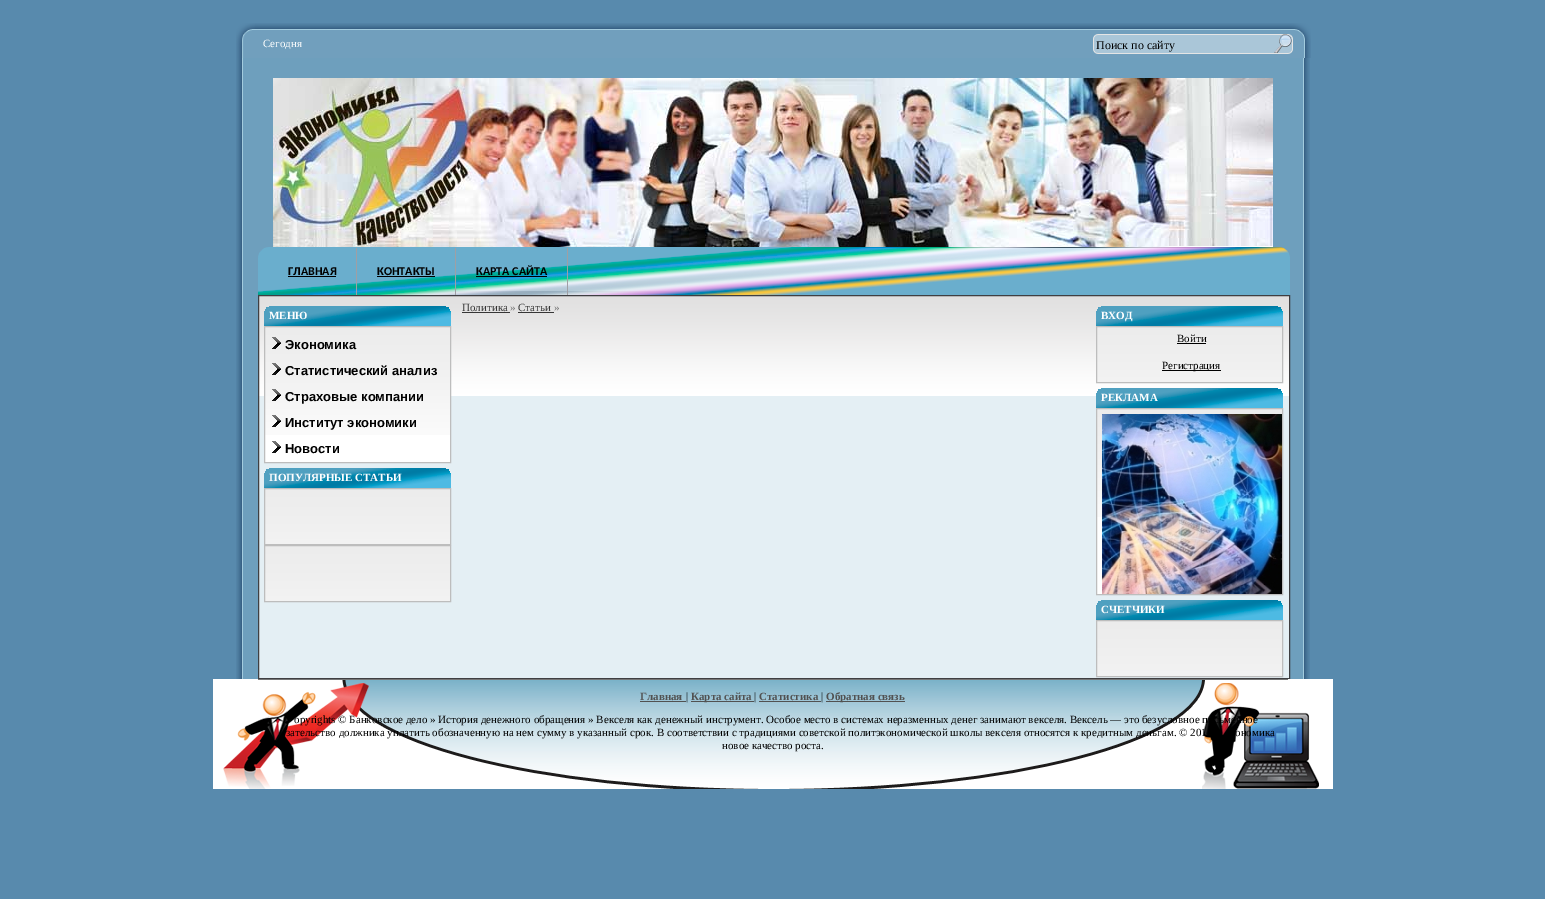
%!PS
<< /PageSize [1545 899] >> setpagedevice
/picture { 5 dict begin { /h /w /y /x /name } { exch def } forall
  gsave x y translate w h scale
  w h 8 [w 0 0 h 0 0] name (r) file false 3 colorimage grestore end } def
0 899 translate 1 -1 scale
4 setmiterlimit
0.345 0.541 0.678 setrgbcolor
0 0 1545 899 rectfill
(img1.rgb) 236 23 1075 35 picture
/LiberationSerif-Regular [11 0 0 -11 0 0] selectfont
1 setgray
263 47 moveto (Сегодня) show
(img2.rgb) 1093 34 200 20 picture
/LiberationSerif-Regular [12 0 0 -12 0 0] selectfont
0 setgray
1096 49 moveto (Поиск по сайту) show
(img3.rgb) 1274 34 18 19 picture
(img4.rgb) 236 58 1074 621 picture
(img5.rgb) 273 78 1000 169 picture
(img6.rgb) 258 247 1032 48 picture
0.624 0.624 0.643 setrgbcolor
356 248 1 47 rectfill
/Carlito-Bold [12 0 0 -12 0 0] selectfont
0 setgray
288 275 moveto (ГЛАВНАЯ) show
288 276 48 1 rectfill
0.624 0.624 0.643 setrgbcolor
455 248 1 47 rectfill
0 setgray
377 275 moveto (КОНТАКТЫ) show
377 276 58 1 rectfill
0.624 0.624 0.643 setrgbcolor
567 248 1 47 rectfill
0 setgray
476 275 moveto (КАРТА САЙТА) show
476 276 71 1 rectfill
0.894 0.937 0.957 setrgbcolor
259 396 1030 282 rectfill
(img7.rgb) 259 296 1030 100 picture
0.247 0.247 0.259 setrgbcolor
258.5 295.5 1031 383 rectstroke
/LiberationSerif-Regular [11 0 0 -11 0 0] selectfont
0.212 setgray
462 311 moveto (Политика) show
0.447 setgray
510 311 moveto (») show
0.212 setgray
462 312 48 1 rectfill
518 311 moveto (Статьи) show
0.447 setgray
554 311 moveto (») show
0.212 setgray
518 312 36 1 rectfill
(img8.rgb) 264 306 187 20 picture
/LiberationSerif-Bold [11 0 0 -11 0 0] selectfont
1 setgray
269 319 moveto (МЕНЮ) show
265 435 185 27 rectfill
(img9.rgb) 265 327 185 108 picture
0.741 setgray
264.5 326.5 186 136 rectstroke
(img10.rgb) 272 337 9 12 picture
/LiberationSans-Bold [13 0 0 -13 0 0] selectfont
0 setgray
285 349 moveto (Экономика) show
(img11.rgb) 272 363 9 12 picture
285 375 moveto (Статистический анализ) show
(img12.rgb) 272 389 9 12 picture
285 401 moveto (Страховые компании) show
(img13.rgb) 272 415 9 12 picture
285 427 moveto (Институт экономики) show
(img14.rgb) 272 441 9 12 picture
285 453 moveto (Новости) show
(img15.rgb) 264 468 187 20 picture
/LiberationSerif-Bold [11 0 0 -11 0 0] selectfont
1 setgray
269 481 moveto (ПОПУЛЯРНЫЕ СТАТЬИ) show
(img16.rgb) 265 489 185 55 picture
0.741 setgray
264.5 488.5 186 56 rectstroke
(img16.rgb) 265 546 185 55 picture
264.5 545.5 186 56 rectstroke
(img8.rgb) 1096 306 187 20 picture
1 setgray
1101 319 moveto (ВХОД) show
(img16.rgb) 1097 327 185 55 picture
0.741 setgray
1096.5 326.5 186 56 rectstroke
/LiberationSerif-Regular [11 0 0 -11 0 0] selectfont
0 setgray
1177 342 moveto (Войти) show
1177 343 29 1 rectfill
1162 370 59 1 rectfill
1162 369 moveto (Регистрация) show
(img17.rgb) 1096 388 187 20 picture
/LiberationSerif-Bold [11 0 0 -11 0 0] selectfont
1 setgray
1101 401 moveto (РЕКЛАМА) show
1097 517 5 77 rectfill
(img9.rgb) 1097 409 185 108 picture
0.741 setgray
1096.5 408.5 186 186 rectstroke
(img18.rgb) 1102 414 180 180 picture
(img15.rgb) 1096 600 187 20 picture
1 setgray
1101 613 moveto (СЧЕТЧИКИ) show
(img16.rgb) 1097 621 185 55 picture
0.741 setgray
1096.5 620.5 186 56 rectstroke
(img19.rgb) 213 679 1120 110 picture
0.463 setgray
258 679 1030 1 rectfill
0.318 setgray
640 700 moveto (Главная) show
640 701 46 1 rectfill
/LiberationSerif-Regular [11 0 0 -11 0 0] selectfont
0 setgray
686 700 moveto (|) show
0.318 setgray
691 701 63 1 rectfill
/LiberationSerif-Bold [11 0 0 -11 0 0] selectfont
691 700 moveto (Карта сайта) show
/LiberationSerif-Regular [11 0 0 -11 0 0] selectfont
0 setgray
754 700 moveto (|) show
/LiberationSerif-Bold [11 0 0 -11 0 0] selectfont
0.318 setgray
759 700 moveto (Статистика) show
759 701 62 1 rectfill
/LiberationSerif-Regular [11 0 0 -11 0 0] selectfont
0 setgray
821 700 moveto (|) show
0.318 setgray
826 701 79 1 rectfill
/LiberationSerif-Bold [11 0 0 -11 0 0] selectfont
826 700 moveto (Обратная связь) show
/LiberationSerif-Regular [11 0 0 -11 0 0] selectfont
0 setgray
294 723 moveto (opyrights © Банковское дело » История денежного обращения » Векселя как денежный инструмент. Особое место в системах неразменных денег занимают векселя. Вексель — это безусловное письменное) show
286 736 moveto (зательство должника уплатить обозначенную на нем сумму в указанный срок. В соответствии с традициями советской политэкономической школы векселя относятся к кредитным деньгам. © 201) show
1235 736 moveto (ономика) show
722 749 moveto (новое качество роста.) show
showpage
